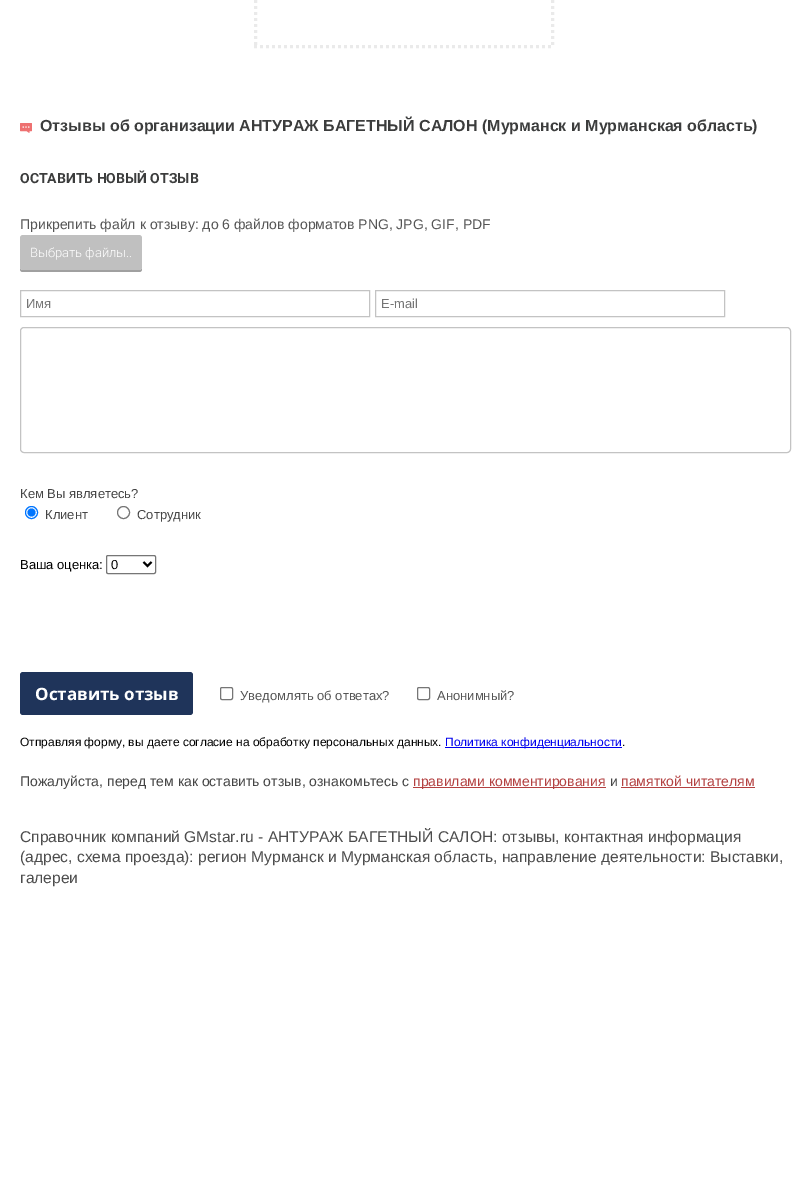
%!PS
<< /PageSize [807 1181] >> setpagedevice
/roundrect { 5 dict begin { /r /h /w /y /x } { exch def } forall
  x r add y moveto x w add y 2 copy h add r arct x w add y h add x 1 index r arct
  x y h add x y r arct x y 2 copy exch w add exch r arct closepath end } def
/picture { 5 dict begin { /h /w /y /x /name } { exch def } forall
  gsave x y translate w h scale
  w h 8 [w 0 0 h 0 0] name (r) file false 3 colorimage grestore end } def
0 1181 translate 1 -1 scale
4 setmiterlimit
1 setgray
0 0 807 1181 rectfill
0.918 setgray
3 setlinewidth
[3 3] 0 setdash
newpath 552.5 -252 moveto 552.5 48 lineto stroke
newpath 254 46.5 moveto 554 46.5 lineto stroke
newpath 255.5 -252 moveto 255.5 48 lineto stroke
(img1.rgb) 20 123 12 10 picture
/LiberationSans-Bold [16 0 0 -16 0 0] selectfont
0.235 0.239 0.239 setrgbcolor
40 131 moveto (Отзывы об организации АНТУРАЖ БАГЕТНЫЙ САЛОН \(Мурманск и Мурманская область\)) show
/Roboto-Bold [14 0 0 -14 0 0] selectfont
20 183 moveto (ОСТАВИТЬ НОВЫЙ ОТЗЫВ) show
/LiberationSans-Regular [14 0 0 -14 0 0] selectfont
0.333 setgray
20 229 moveto (Прикрепить файл к отзыву: до 6 файлов форматов PNG, JPG, GIF, PDF) show
0.627 setgray
newpath 20 267 moveto 20 269 lineto 20 271 21 272 23 272 curveto 139 272 lineto 141 272 142 271 142 269 curveto 142 267 lineto 142 269 141 270 139 270 curveto 23 270 lineto 21 270 20 269 20 267 curveto closepath fill
0.753 setgray
20 235 122 35 3 roundrect fill
/Roboto-Light [13 0 0 -13 0 0] selectfont
1 setgray
30 257 moveto (Выбрать файлы..) show
0.765 setgray
1 setlinewidth
[] 0 setdash
20.5 290.5 349 26 rectstroke
/LiberationSans-Regular [13 0 0 -13 0 0] selectfont
0.459 setgray
26 308 moveto (Имя) show
0.765 setgray
375.5 290.5 349 26 rectstroke
0.459 setgray
381 308 moveto (E-mail) show
0.765 setgray
20.5 327.5 770 125 3.5 roundrect stroke
0.271 setgray
20 498 moveto (Кем Вы являетесь?) show
0 0.459 1 setrgbcolor
newpath 31.5 512.5 6 0 360 arc closepath stroke
newpath 31.5 512.5 4 0 360 arc closepath fill
0.271 setgray
45 519 moveto (Клиент) show
0.463 setgray
newpath 123.5 512.5 6 0 360 arc closepath stroke
0.271 setgray
137 519 moveto (Сотрудник) show
0 setgray
20 569 moveto (Ваша оценка:) show
0.463 setgray
106.5 555.5 49 18 1.5 roundrect stroke
0 setgray
2 setlinewidth
newpath 143.5 562 moveto 147.5 566 lineto 151.5 562 lineto stroke
111 569 moveto (0) show
0.122 0.204 0.353 setrgbcolor
20 672 173 43 3 roundrect fill
/OpenSans-Bold [17 0 0 -17 0 0] selectfont
1 setgray
35 700 moveto (Оставить отзыв) show
0.463 setgray
1 setlinewidth
220.5 687.5 12 12 1.5 roundrect stroke
/LiberationSans-Regular [13 0 0 -13 0 0] selectfont
0.333 setgray
240 700 moveto (Уведомлять об ответах?) show
0.463 setgray
417.5 687.5 12 12 1.5 roundrect stroke
0.333 setgray
437 700 moveto (Анонимный?) show
/LiberationSans-Regular [12 0 0 -12 0 0] selectfont
0 setgray
20 746 moveto (Отправляя форму, вы даете согласие на обработку персональных данных.) show
0 0 0.933 setrgbcolor
445 747 177 1 rectfill
445 746 moveto (Политика конфиденциальности) show
0 setgray
622 746 moveto (.) show
/LiberationSans-Regular [14 0 0 -14 0 0] selectfont
0.271 setgray
20 786 moveto (Пожалуйста, перед тем как оставить отзыв, ознакомьтесь с) show
0.706 0.255 0.255 setrgbcolor
413 787 193 1 rectfill
413 786 moveto (правилами комментирования) show
0.271 setgray
610 786 moveto (и) show
0.706 0.255 0.255 setrgbcolor
621 786 moveto (памяткой читателям) show
621 787 134 1 rectfill
/LiberationSans-Regular [15.6 0 0 -15.6 0 0] selectfont
0.302 setgray
20 842 moveto (Справочник компаний GMstar.ru - АНТУРАЖ БАГЕТНЫЙ САЛОН: отзывы, контактная информация) show
20 862 moveto (\(адрес, схема проезда\): регион Мурманск и Мурманская область, направление деятельности: Выставки,) show
20 883 moveto (галереи) show
showpage
